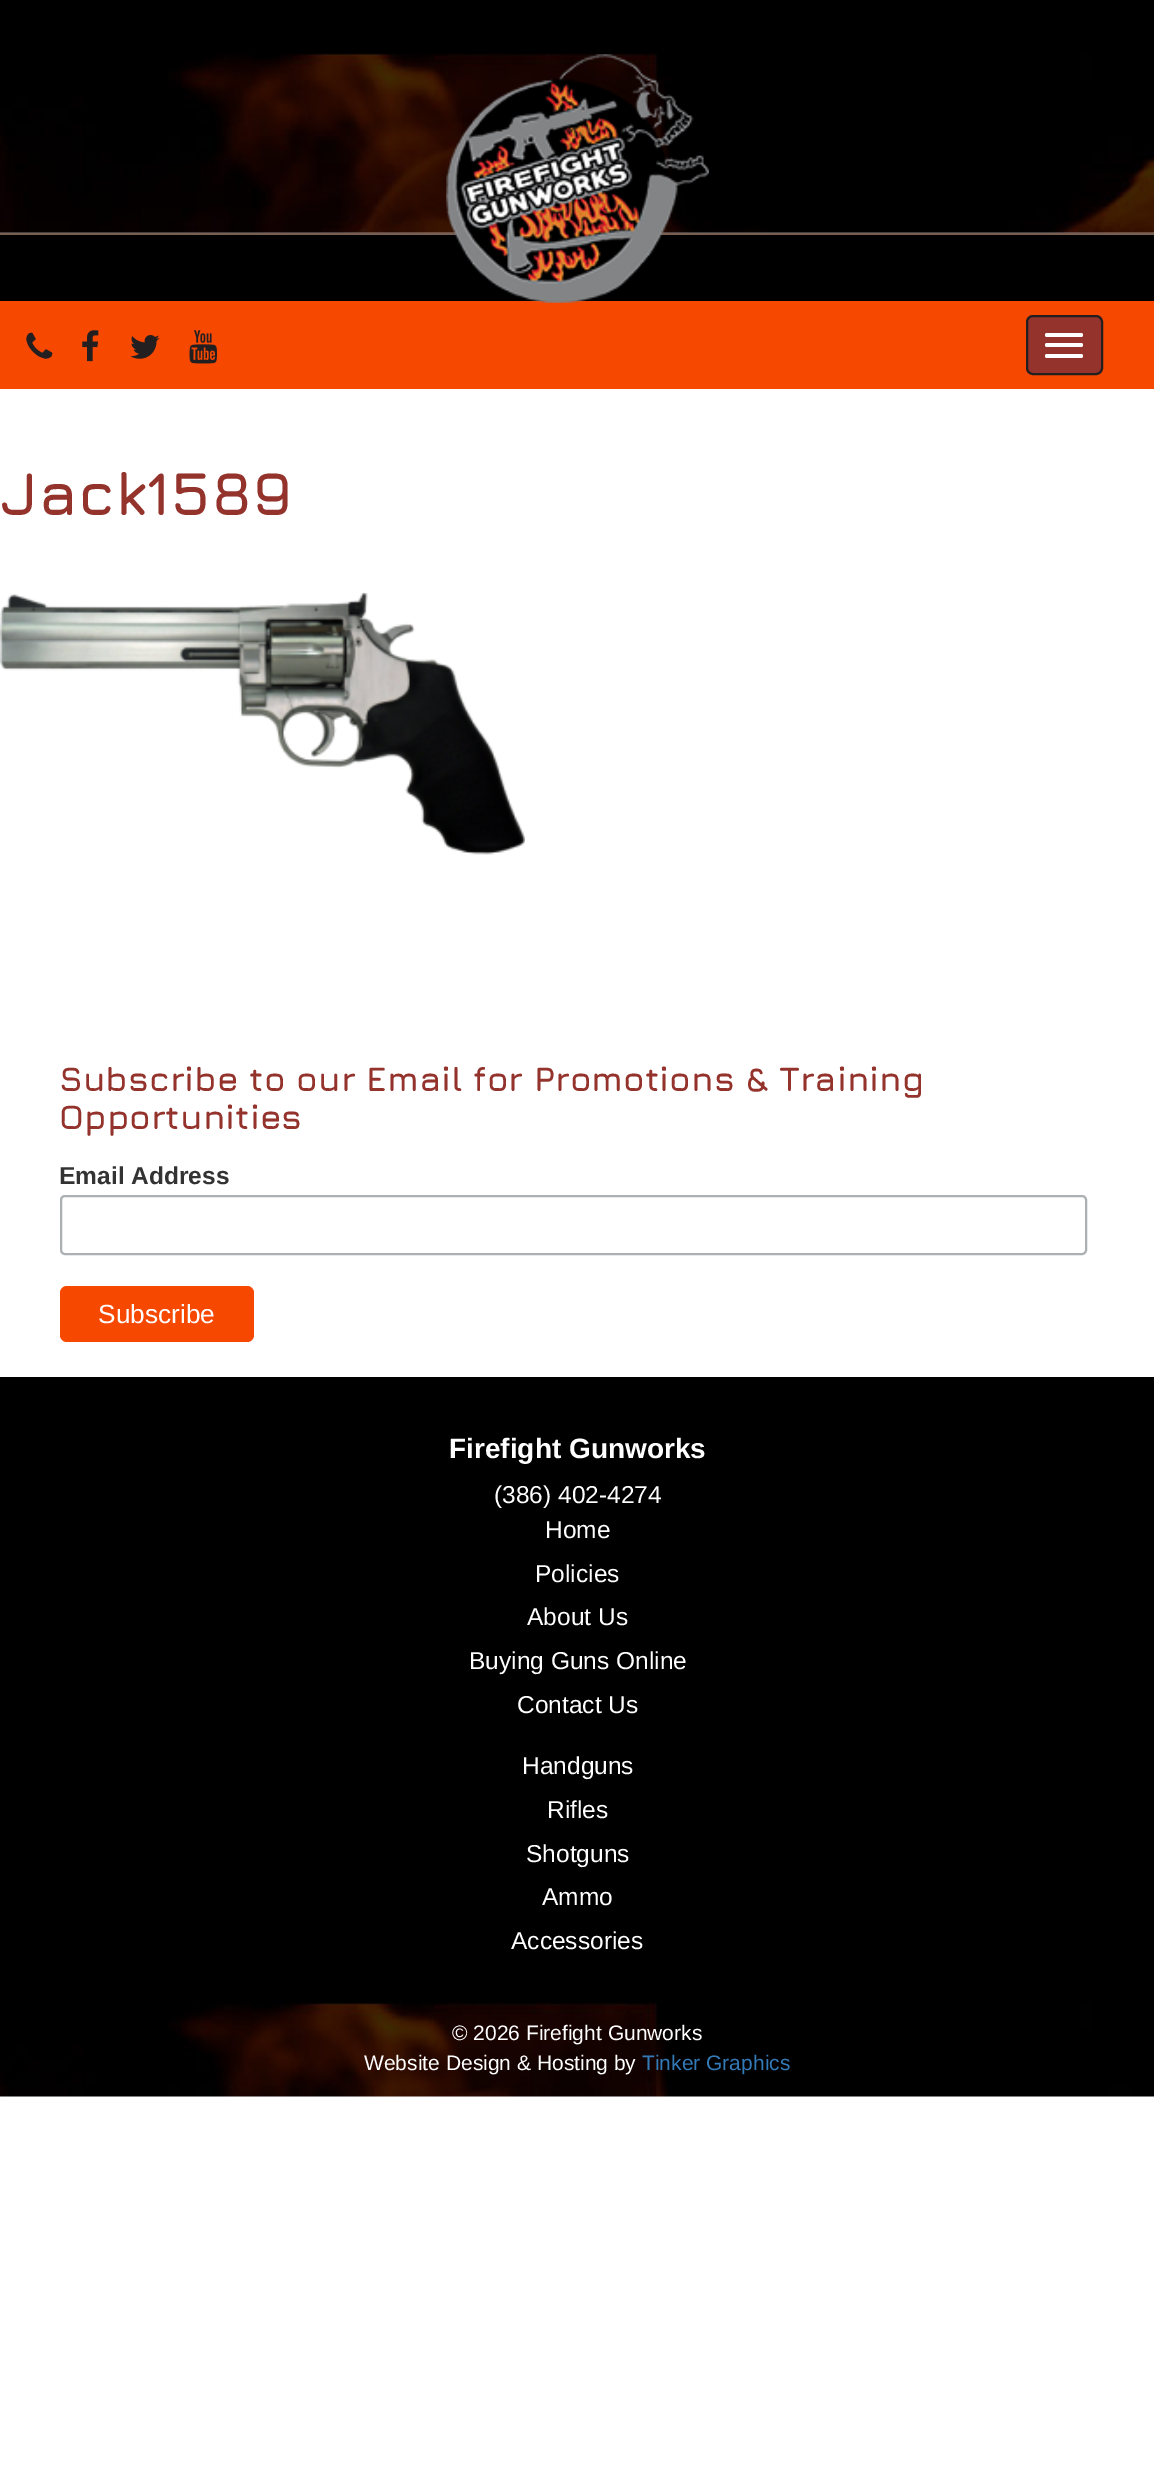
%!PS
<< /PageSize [1154 2482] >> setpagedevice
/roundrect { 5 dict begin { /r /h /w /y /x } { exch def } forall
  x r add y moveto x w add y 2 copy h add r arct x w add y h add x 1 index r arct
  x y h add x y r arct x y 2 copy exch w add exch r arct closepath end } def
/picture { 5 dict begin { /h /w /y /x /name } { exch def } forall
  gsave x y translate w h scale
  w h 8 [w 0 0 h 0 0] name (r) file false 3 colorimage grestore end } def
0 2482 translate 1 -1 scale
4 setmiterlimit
1 setgray
0 0 1154 2482 rectfill
0 setgray
0 0 1154 53 rectfill
(img1.rgb) 0 53 1154 180 picture
0 235 1154 66 rectfill
0.471 0.373 0.322 setrgbcolor
0 233 1154 2 rectfill
0.969 0.282 0 setrgbcolor
0 301 1154 88 rectfill
(img2.rgb) 446 54 263 249 picture
(img3.rgb) 26 332 27 27 picture
(img4.rgb) 82 330 17 32 picture
(img5.rgb) 130 335 30 24 picture
(img6.rgb) 189 330 28 34 picture
0.58 0.196 0.173 setrgbcolor
1027 316 75 58 6 roundrect gsave fill grestore
0.137 0.122 0.125 setrgbcolor
2 setlinewidth
stroke
1 setgray
1045 333 38 4 2 roundrect fill
1045 343 38 4 2 roundrect fill
1045 354 38 4 2 roundrect fill
/Jura-Bold [61.25 0 0 -61.25 0 0] selectfont
0.58 0.196 0.173 setrgbcolor
0 515 moveto (Jack1589) show
(img7.rgb) 0 592 525 263 picture
/Jura-Bold [34.3 0 0 -34.3 0 0] selectfont
59 1091 moveto (Subscribe to our Email for Promotions & Training) show
59 1129 moveto (Opportunities) show
/LiberationSans-Bold [24.5 0 0 -24.5 0 0] selectfont
0.2 setgray
59 1184 moveto (Email Address) show
0.671 0.69 0.698 setrgbcolor
61 1196 1025 58 4 roundrect stroke
0.969 0.282 0 setrgbcolor
60 1286 194 56 7 roundrect fill
/LiberationSans-Regular [26.25 0 0 -26.25 0 0] selectfont
1 setgray
98 1323 moveto (Subscribe) show
0 setgray
0 1377 1154 625 rectfill
/LiberationSans-Bold [28 0 0 -28 0 0] selectfont
1 setgray
449 1458 moveto (Firefight Gunworks) show
/LiberationSans-Regular [24.5 0 0 -24.5 0 0] selectfont
494 1503 moveto (\(386\) 402-4274) show
545 1538 moveto (Home) show
535 1582 moveto (Policies) show
527 1625 moveto (About Us) show
469 1669 moveto (Buying Guns Online) show
517 1713 moveto (Contact Us) show
522 1774 moveto (Handguns) show
547 1818 moveto (Rifles) show
526 1862 moveto (Shotguns) show
542 1905 moveto (Ammo) show
511 1949 moveto (Accessories) show
(img8.rgb) 0 2002 1154 95 picture
/LiberationSans-Regular [21 0 0 -21 0 0] selectfont
452 2040 moveto (© 2026 Firefight Gunworks) show
364 2070 moveto (Website Design & Hosting by) show
0.2 0.478 0.718 setrgbcolor
642 2070 moveto (Tinker Graphics) show
showpage
